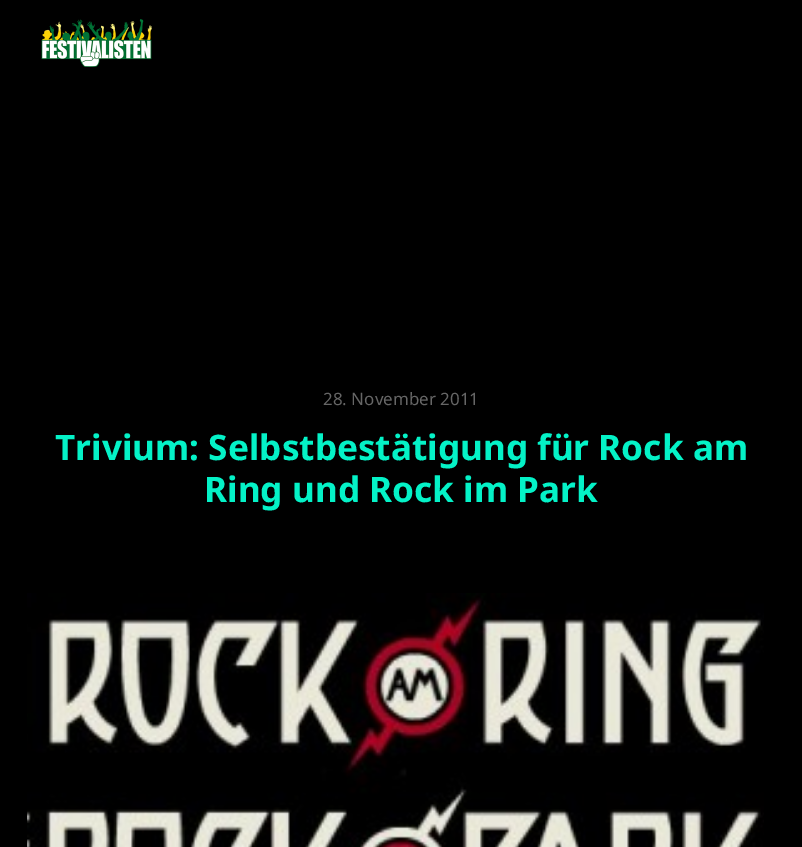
%!PS
<< /PageSize [802 847] >> setpagedevice
/picture { 5 dict begin { /h /w /y /x /name } { exch def } forall
  gsave x y translate w h scale
  w h 8 [w 0 0 h 0 0] name (r) file false 3 colorimage grestore end } def
0 847 translate 1 -1 scale
4 setmiterlimit
0 setgray
0 0 802 847 rectfill
(img1.rgb) 41 19 111 48 picture
/NotoSans-Regular [17 0 0 -17 0 0] selectfont
0.4 setgray
323 405 moveto (28. November 2011) show
/NotoSans-Bold [35.2 0 0 -35.2 0 0] selectfont
0.016 0.949 0.78 setrgbcolor
55 460 moveto (Trivium: Selbstbestätigung für Rock am) show
204 502 moveto (Ring und Rock im Park) show
(img2.rgb) 27 593 737 254 picture
showpage
